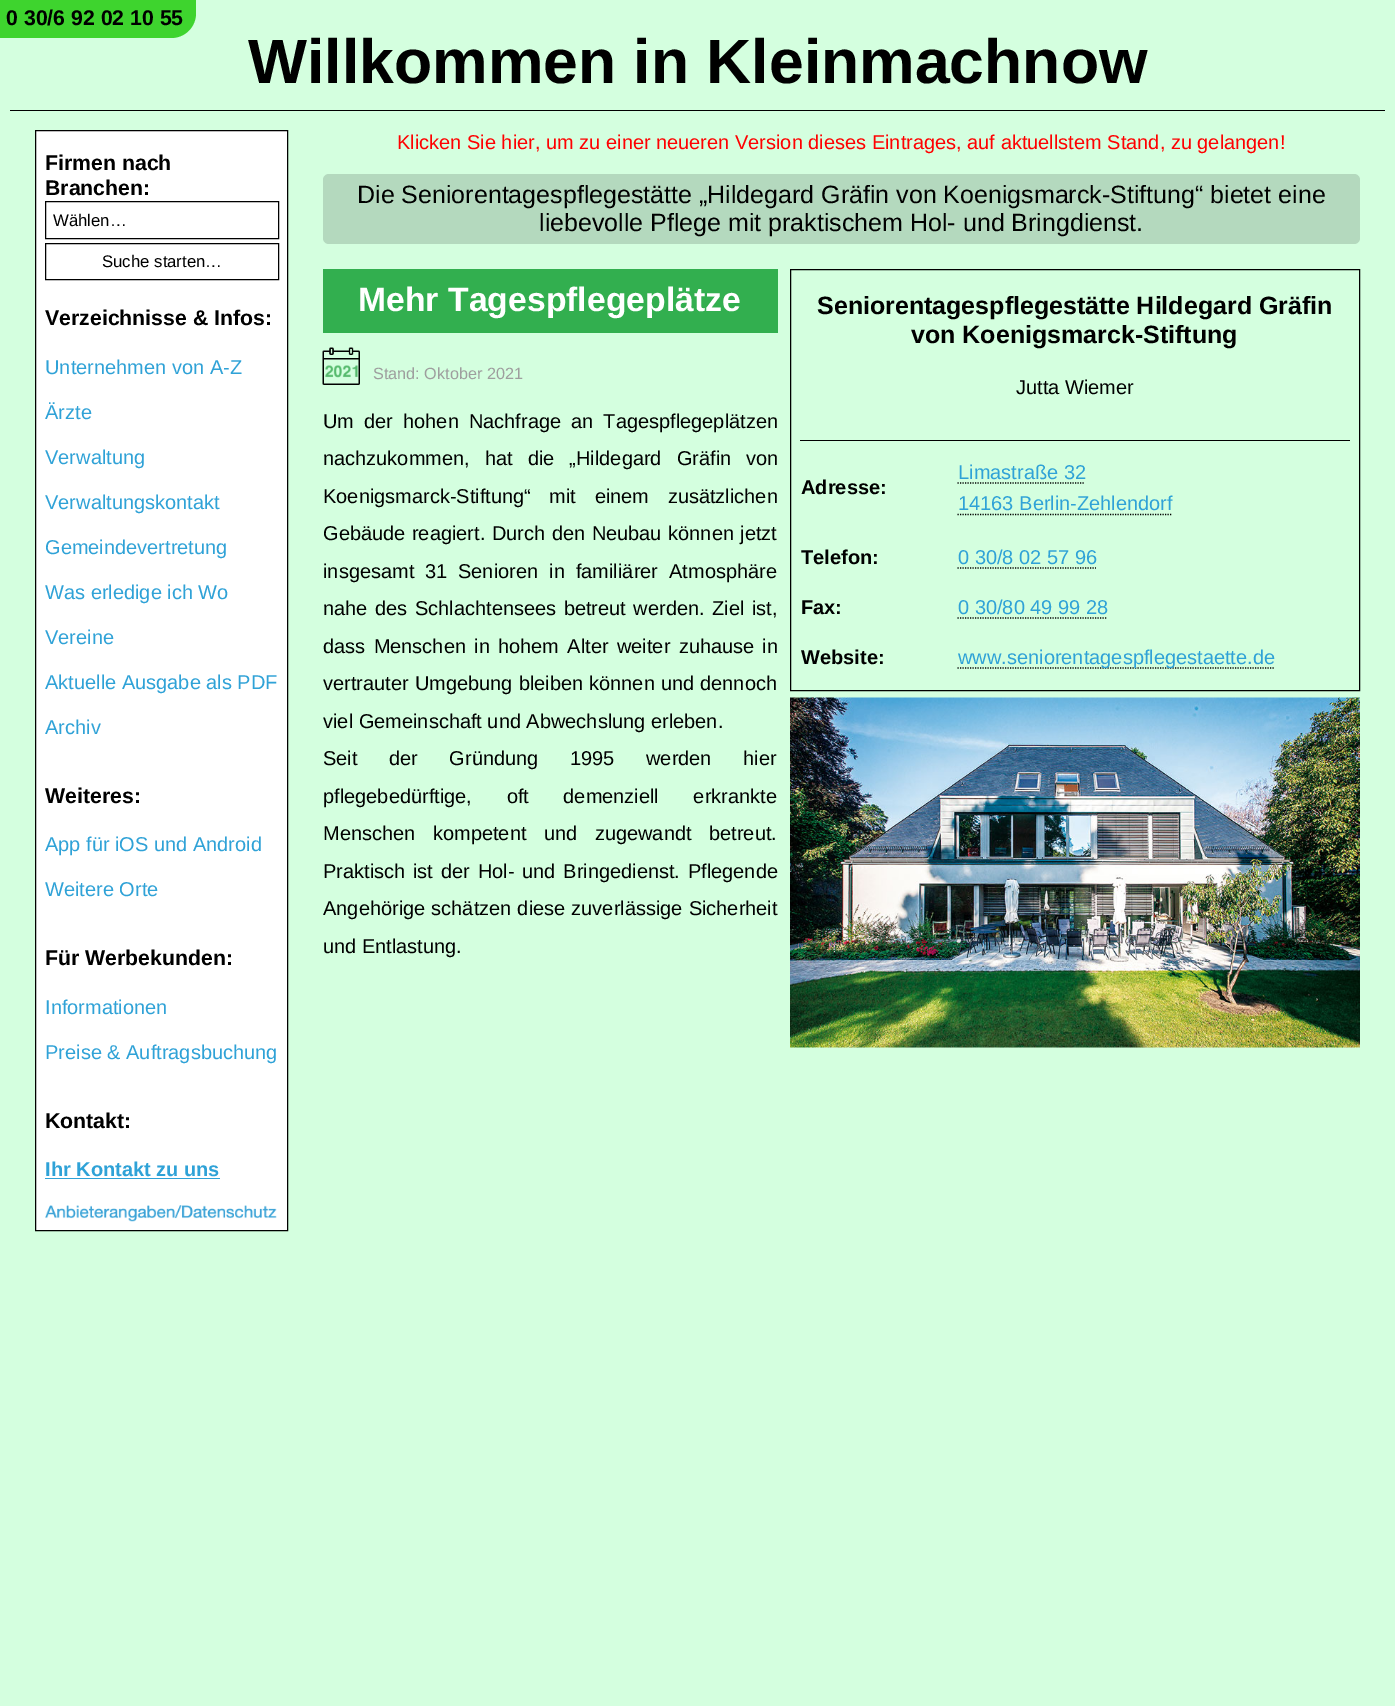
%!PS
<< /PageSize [1395 1706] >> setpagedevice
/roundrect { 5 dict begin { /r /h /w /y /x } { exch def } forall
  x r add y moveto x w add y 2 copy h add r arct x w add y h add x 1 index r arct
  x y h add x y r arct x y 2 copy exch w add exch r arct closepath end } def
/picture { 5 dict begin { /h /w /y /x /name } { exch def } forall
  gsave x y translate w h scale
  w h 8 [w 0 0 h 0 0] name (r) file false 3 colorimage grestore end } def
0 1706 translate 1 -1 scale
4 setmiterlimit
0.831 1 0.875 setrgbcolor
0 0 1395 1706 rectfill
0.243 0.831 0.18 setrgbcolor
newpath 0 0 moveto 196 0 lineto 196 13 lineto 196 27 185 38 171 38 curveto 0 38 lineto closepath fill
/LiberationSans-Bold [21.25 0 0 -21.25 0 0] selectfont
0 setgray
6 25 moveto (0 30/6 92 02 10 55) show
10 110 1375 1 rectfill
/LiberationSans-Bold [62.5 0 0 -62.5 0 0] selectfont
248 83 moveto (Willkommen in Kleinmachnow) show
1 setgray
newpath 35.5 130.5 moveto 287.5 130.5 lineto 287.5 1230.5 lineto 35.5 1230.5 lineto closepath gsave fill grestore
0 setgray
stroke
/LiberationSans-Bold [21.25 0 0 -21.25 0 0] selectfont
45 170 moveto (Firmen nach) show
45 195 moveto (Branchen:) show
45.5 201.5 233 37 rectstroke
/LiberationSans-Regular [16.75 0 0 -16.75 0 0] selectfont
53 226 moveto (Wählen…) show
45.5 243.5 233 36 rectstroke
102 267 moveto (Suche starten…) show
/LiberationSans-Bold [21.25 0 0 -21.25 0 0] selectfont
45 325 moveto (Verzeichnisse & Infos:) show
/LiberationSans-Regular [20 0 0 -20 0 0] selectfont
0.184 0.635 0.843 setrgbcolor
45 374 moveto (Unternehmen von A-Z) show
45 419 moveto (Ärzte) show
45 464 moveto (Verwaltung) show
45 509 moveto (Verwaltungskontakt) show
45 554 moveto (Gemeindevertretung) show
45 599 moveto (Was erledige ich Wo) show
45 644 moveto (Vereine) show
45 689 moveto (Aktuelle Ausgabe als PDF) show
45 734 moveto (Archiv) show
/LiberationSans-Bold [21.25 0 0 -21.25 0 0] selectfont
0 setgray
45 803 moveto (Weiteres:) show
/LiberationSans-Regular [20 0 0 -20 0 0] selectfont
0.184 0.635 0.843 setrgbcolor
45 851 moveto (App für iOS und Android) show
45 896 moveto (Weitere Orte) show
/LiberationSans-Bold [21.25 0 0 -21.25 0 0] selectfont
0 setgray
45 965 moveto (Für Werbekunden:) show
/LiberationSans-Regular [20 0 0 -20 0 0] selectfont
0.184 0.635 0.843 setrgbcolor
45 1014 moveto (Informationen) show
45 1059 moveto (Preise & Auftragsbuchung) show
/LiberationSans-Bold [21.25 0 0 -21.25 0 0] selectfont
0 setgray
45 1128 moveto (Kontakt:) show
/LiberationSans-Bold [20 0 0 -20 0 0] selectfont
0.184 0.635 0.843 setrgbcolor
45 1176 moveto (Ihr Kontakt zu uns) show
45 1178 175 1 rectfill
(img1.rgb) 45 1205 232 17 picture
/LiberationSans-Regular [20 0 0 -20 0 0] selectfont
1 0 0 setrgbcolor
397 149 moveto (Klicken Sie hier, um zu einer neueren Version dieses Eintrages, auf aktuellstem Stand, zu gelangen!) show
0.706 0.851 0.745 setrgbcolor
323 174 1037 70 6 roundrect fill
/LiberationSans-Regular [25 0 0 -25 0 0] selectfont
0 setgray
357 203 moveto (Die Seniorentagespflegestätte „Hildegard Gräfin von Koenigsmarck-Stiftung“ bietet eine) show
539 231 moveto (liebevolle Pflege mit praktischem Hol- und Bringdienst.) show
0.196 0.686 0.31 setrgbcolor
323 269 455 64 rectfill
/LiberationSans-Bold [33.75 0 0 -33.75 0 0] selectfont
1 setgray
358 311 moveto (Mehr Tagespflegeplätze) show
0 setgray
790.5 269.5 569 421 rectstroke
/LiberationSans-Bold [25 0 0 -25 0 0] selectfont
817 314 moveto (Seniorentagespflegestätte Hildegard Gräfin) show
911 343 moveto (von Koenigsmarck-Stiftung) show
/LiberationSans-Regular [20 0 0 -20 0 0] selectfont
1016 394 moveto (Jutta Wiemer) show
800 440 550 1 rectfill
/LiberationSans-Bold [20 0 0 -20 0 0] selectfont
801 494 moveto (Adresse:) show
/LiberationSans-Regular [20 0 0 -20 0 0] selectfont
0.184 0.635 0.843 setrgbcolor
958 479 moveto (Limastraße 32) show
0 setgray
1.2 setlinewidth
[1.25 1.25] 0 setdash
newpath 957.5 483 moveto 1085 483 lineto stroke
0.184 0.635 0.843 setrgbcolor
958 510 moveto (14163 Berlin-Zehlendorf) show
0 setgray
newpath 957.5 514.5 moveto 1172.5 514.5 lineto stroke
/LiberationSans-Bold [20 0 0 -20 0 0] selectfont
801 564 moveto (Telefon:) show
/LiberationSans-Regular [20 0 0 -20 0 0] selectfont
0.184 0.635 0.843 setrgbcolor
958 564 moveto (0 30/8 02 57 96) show
0 setgray
newpath 957.5 568 moveto 1096 568 lineto stroke
/LiberationSans-Bold [20 0 0 -20 0 0] selectfont
801 614 moveto (Fax:) show
/LiberationSans-Regular [20 0 0 -20 0 0] selectfont
0.184 0.635 0.843 setrgbcolor
958 614 moveto (0 30/80 49 99 28) show
0 setgray
newpath 957.5 618 moveto 1107.5 618 lineto stroke
/LiberationSans-Bold [20 0 0 -20 0 0] selectfont
801 664 moveto (Website:) show
newpath 957.5 668 moveto 1275 668 lineto stroke
/LiberationSans-Regular [20 0 0 -20 0 0] selectfont
0.184 0.635 0.843 setrgbcolor
958 664 moveto (www.seniorentagespflegestaette.de) show
(img2.rgb) 790 697 570 351 picture
(img3.rgb) 322 347 38 38 picture
/LiberationSans-Regular [16.25 0 0 -16.25 0 0] selectfont
0.62 setgray
373 379 moveto (Stand: Oktober 2021) show
/LiberationSans-Regular [20 0 0 -20 0 0] selectfont
0 setgray
323 428 moveto 4.5 0 32 (Um der hohen Nachfrage an Tagespflegeplätzen) widthshow
323 465 moveto 9.5 0 32 (nachzukommen, hat die „Hildegard Gräfin von) widthshow
323 503 moveto 13 0 32 (Koenigsmarck-Stiftung“ mit einem zusätzlichen) widthshow
323 540 moveto 1 0 32 (Gebäude reagiert. Durch den Neubau können jetzt) widthshow
323 578 moveto 5.5 0 32 (insgesamt 31) widthshow
458 578 moveto 5.5 0 32 (Senioren in familiärer Atmosphäre) widthshow
323 615 moveto 2 0 32 (nahe des Schlachtensees betreut werden. Ziel ist,) widthshow
323 653 moveto 2.75 0 32 (dass Menschen in hohem Alter weiter zuhause in) widthshow
323 690 moveto 0.5 0 32 (vertrauter Umgebung bleiben können und dennoch) widthshow
323 728 moveto (viel Gemeinschaft und Abwechslung erleben.) show
323 765 moveto 26 0 32 (Seit der Gründung 1995 werden hier) widthshow
323 803 moveto 29 0 32 (pflegebedürftige, oft demenziell erkrankte) widthshow
323 840 moveto 12 0 32 (Menschen kompetent und zugewandt betreut.) widthshow
323 878 moveto 2.25 0 32 (Praktisch ist der Hol- und Bringedienst. Pflegende) widthshow
323 915 moveto 0.5 0 32 (Angehörige schätzen diese zuverlässige Sicherheit) widthshow
323 953 moveto (und Entlastung.) show
showpage
